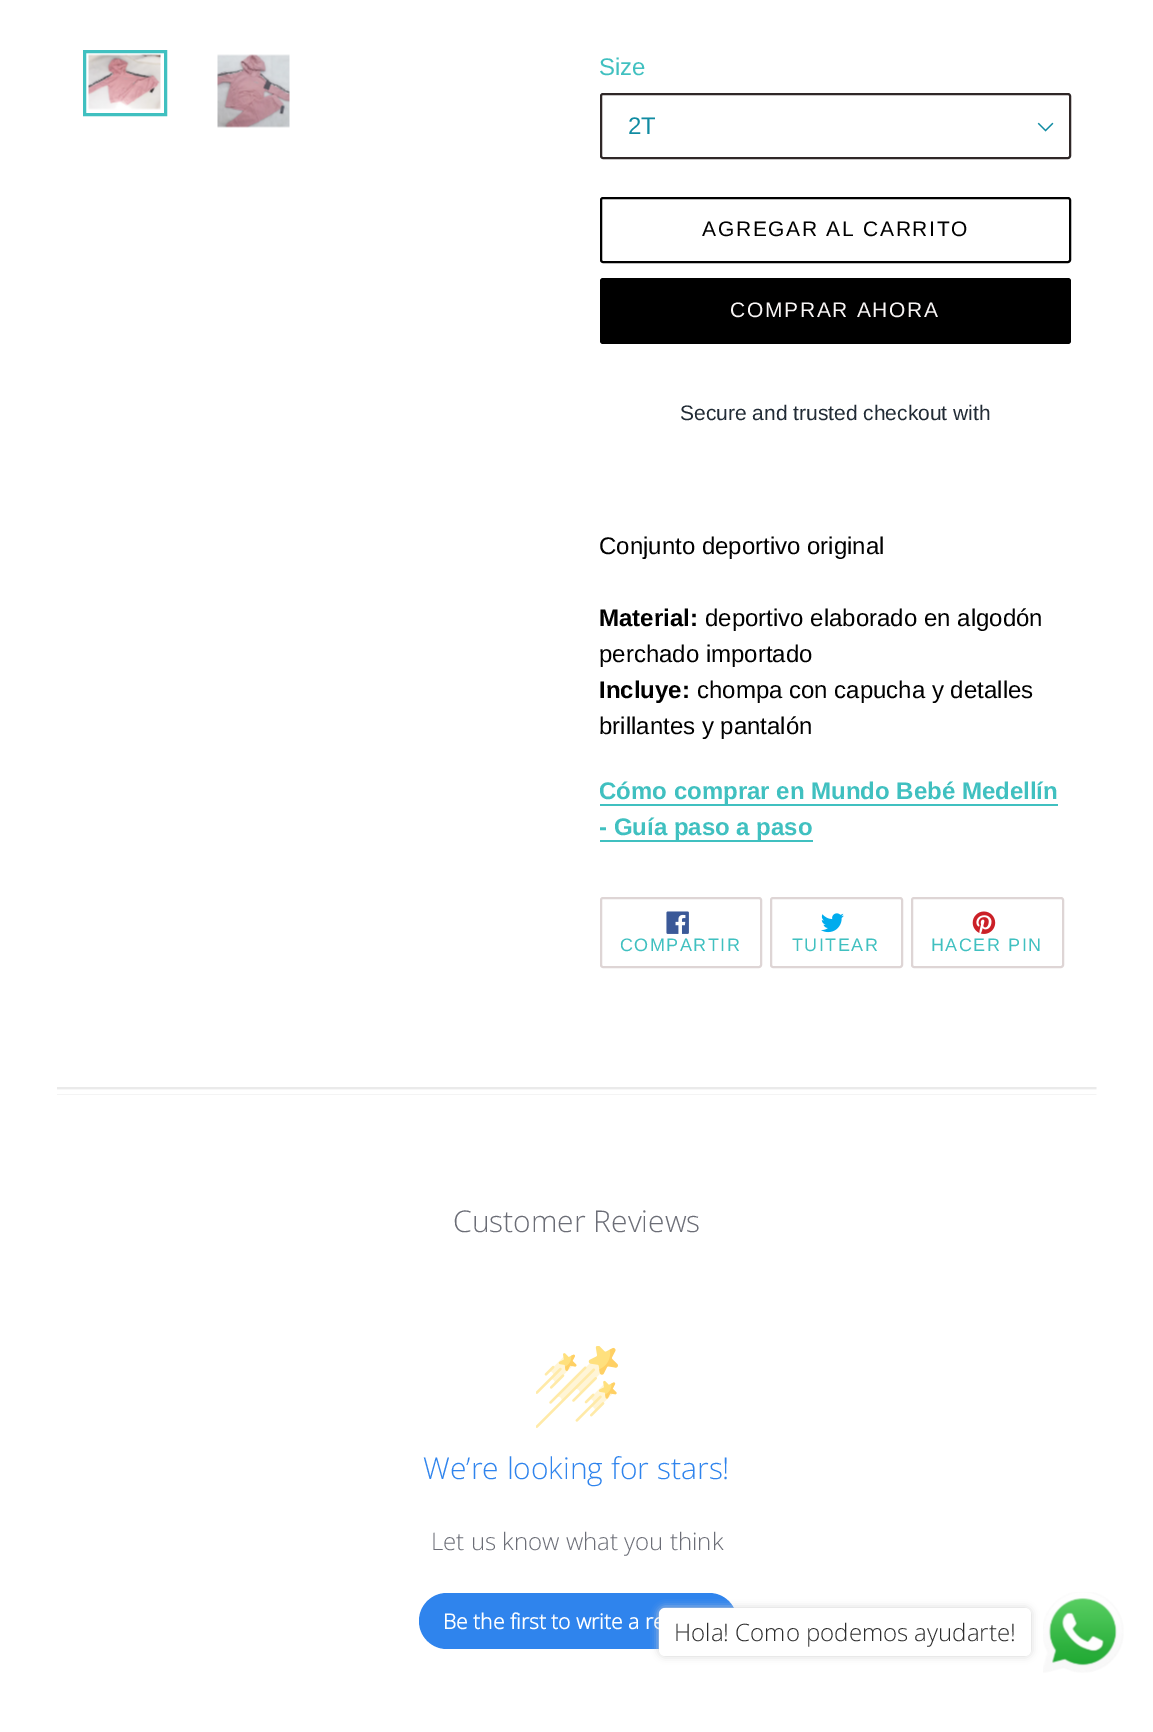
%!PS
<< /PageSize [1153 1732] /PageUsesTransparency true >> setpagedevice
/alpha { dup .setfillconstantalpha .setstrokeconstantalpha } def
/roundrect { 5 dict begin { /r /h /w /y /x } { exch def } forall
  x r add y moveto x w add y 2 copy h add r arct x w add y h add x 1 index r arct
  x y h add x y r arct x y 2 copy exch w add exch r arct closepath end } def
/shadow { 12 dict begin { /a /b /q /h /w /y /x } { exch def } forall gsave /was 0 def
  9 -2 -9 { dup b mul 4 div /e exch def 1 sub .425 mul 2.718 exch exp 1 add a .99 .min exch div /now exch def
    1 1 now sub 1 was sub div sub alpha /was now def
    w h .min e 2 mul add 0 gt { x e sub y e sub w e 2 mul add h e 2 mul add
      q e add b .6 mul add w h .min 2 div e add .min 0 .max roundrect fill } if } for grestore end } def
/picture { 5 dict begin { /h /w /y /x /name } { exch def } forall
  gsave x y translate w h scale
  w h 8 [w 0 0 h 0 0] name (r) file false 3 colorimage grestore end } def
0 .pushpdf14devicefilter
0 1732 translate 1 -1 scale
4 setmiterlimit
1 setgray
0 0 1153 1732 rectfill
0.251 0.753 0.753 setrgbcolor
3 setlinewidth
84.5 51.5 81 63 rectstroke
(img1.rgb) 88 54 73 56 picture
(img2.rgb) 217 54 73 74 picture
/LiberationSans-Regular [24 0 0 -24 0 0] selectfont
599 75 moveto (Size) show
(img3.rgb) 1037 122 17 10 picture
0.184 0.153 0.153 setrgbcolor
2 setlinewidth
601 94 469 64 2 roundrect stroke
0.063 0.545 0.635 setrgbcolor
628 134 moveto (2T) show
0 setgray
601 198 469 64 2 roundrect stroke
/LiberationSans-Regular [21 0 0 -21 0 0] selectfont
702 236 moveto 1.7 0 (AGREGAR AL CARRITO) ashow
600 278 471 66 3 roundrect fill
0.973 0.961 0.961 setrgbcolor
730 317 moveto 1.7 0 (COMPRAR AHORA) ashow
0.129 0.169 0.208 setrgbcolor
680 420 moveto (Secure and trusted checkout with) show
/LiberationSans-Regular [24 0 0 -24 0 0] selectfont
0 setgray
599 554 moveto (Conjunto deportivo original) show
/LiberationSans-Bold [24 0 0 -24 0 0] selectfont
599 626 moveto (Material:) show
/LiberationSans-Regular [24 0 0 -24 0 0] selectfont
705 626 moveto (deportivo elaborado en algodón) show
599 662 moveto (perchado importado) show
/LiberationSans-Bold [24 0 0 -24 0 0] selectfont
599 698 moveto (Incluye:) show
/LiberationSans-Regular [24 0 0 -24 0 0] selectfont
697 698 moveto (chompa con capucha y detalles) show
599 734 moveto (brillantes y pantalón) show
/LiberationSans-Bold [24 0 0 -24 0 0] selectfont
0.251 0.753 0.753 setrgbcolor
599 799 moveto (Cómo comprar en Mundo Bebé Medellín) show
600 804 458 2 rectfill
599 835 moveto (- Guía paso a paso) show
600 840 213 2 rectfill
0.871 0.835 0.835 setrgbcolor
601 898 160 69 2 roundrect stroke
(img4.rgb) 666 911 23 23 picture
/LiberationSans-Regular [18 0 0 -18 0 0] selectfont
0.251 0.753 0.753 setrgbcolor
620 951 moveto 1.5 0 (COMPARTIR) ashow
0.871 0.835 0.835 setrgbcolor
771 898 131 69 2 roundrect stroke
(img5.rgb) 821 913 23 20 picture
0.251 0.753 0.753 setrgbcolor
792 951 moveto 1.5 0 (TUITEAR) ashow
0.871 0.835 0.835 setrgbcolor
912 898 151 69 2 roundrect stroke
(img6.rgb) 972 911 24 23 picture
0.251 0.753 0.753 setrgbcolor
931 951 moveto 1.5 0 (HACER PIN) ashow
(img7.rgb) 57 1087 1040 8 picture
/OpenSans-Light [30 0 0 -30 0 0] selectfont
0.42 0.427 0.463 setrgbcolor
453 1232 moveto (Customer Reviews) show
(img8.rgb) 536 1346 82 82 picture
0.184 0.518 0.929 setrgbcolor
423 1479 moveto (We’re looking for stars!) show
/OpenSans-Light [24 0 0 -24 0 0] selectfont
0.42 0.427 0.463 setrgbcolor
431 1550 moveto (Let us know what you think) show
0.184 0.518 0.929 setrgbcolor
419 1593 318 56 28 roundrect fill
/OpenSans-Bold [21 0 0 -21 0 0] selectfont
1 setgray
443 1629 moveto (Be the first to write a re) show
0.827 setgray
659 1608 372 48 6 4 1 shadow
1 setgray
659 1608 372 48 6 roundrect fill
/OpenSans-Light [24 0 0 -24 0 0] selectfont
0.173 setgray
674 1641 moveto (Hola! Como podemos ayudarte!) show
(img9.rgb) 1043 1592 81 81 picture
.poppdf14devicefilter showpage
